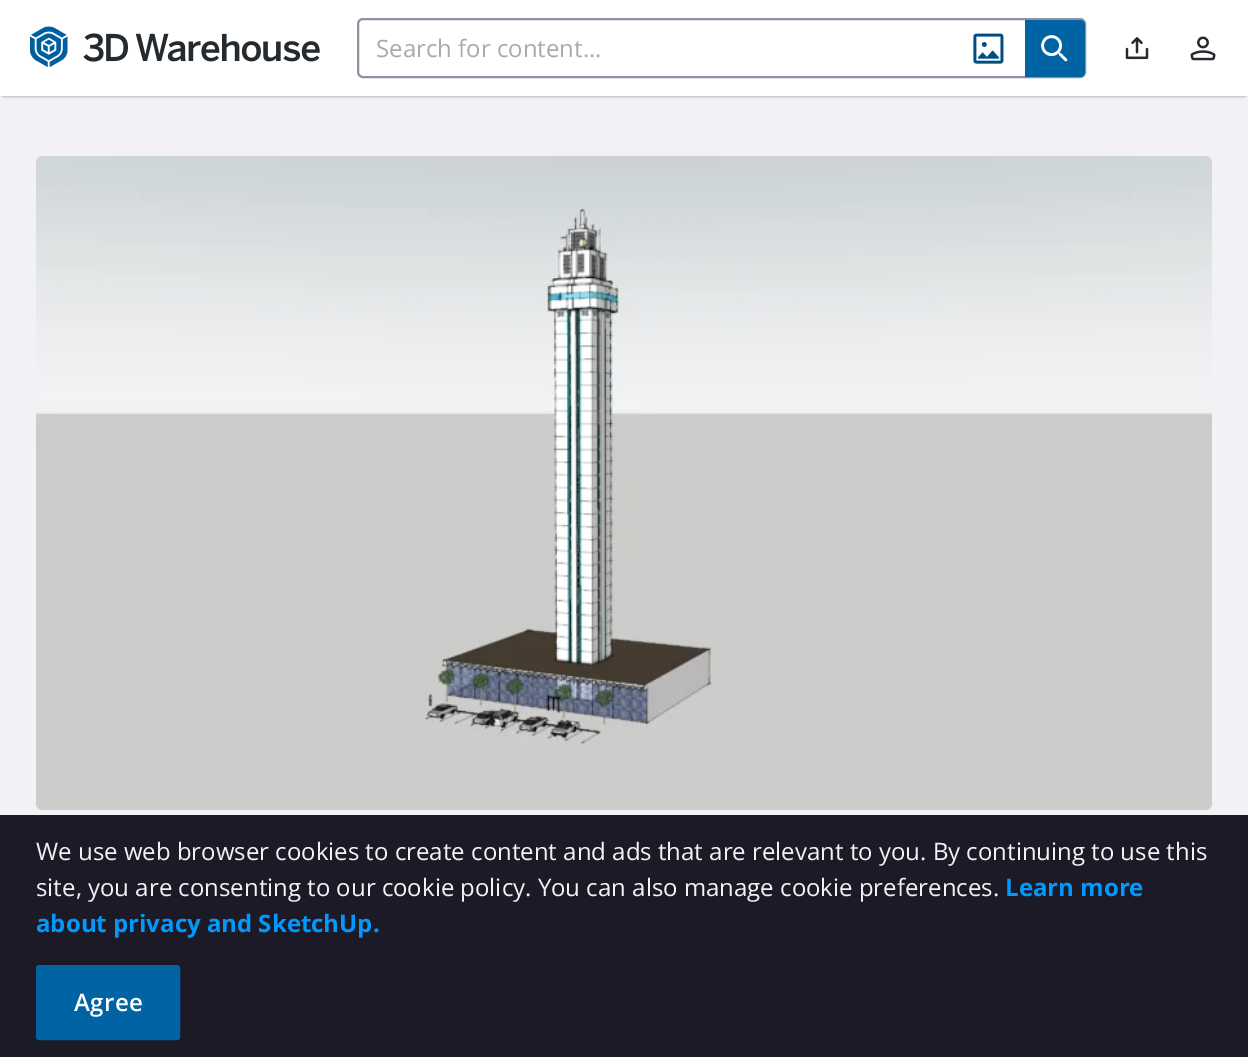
%!PS
<< /PageSize [1248 1057] /PageUsesTransparency true >> setpagedevice
/alpha { dup .setfillconstantalpha .setstrokeconstantalpha } def
/roundrect { 5 dict begin { /r /h /w /y /x } { exch def } forall
  x r add y moveto x w add y 2 copy h add r arct x w add y h add x 1 index r arct
  x y h add x y r arct x y 2 copy exch w add exch r arct closepath end } def
/shadow { 12 dict begin { /a /b /q /h /w /y /x } { exch def } forall gsave /was 0 def
  9 -2 -9 { dup b mul 4 div /e exch def 1 sub .425 mul 2.718 exch exp 1 add a .99 .min exch div /now exch def
    1 1 now sub 1 was sub div sub alpha /was now def
    w h .min e 2 mul add 0 gt { x e sub y e sub w e 2 mul add h e 2 mul add
      q e add b .6 mul add w h .min 2 div e add .min 0 .max roundrect fill } if } for grestore end } def
/picture { 5 dict begin { /h /w /y /x /name } { exch def } forall
  gsave x y translate w h scale
  w h 8 [w 0 0 h 0 0] name (r) file false 3 colorimage grestore end } def
0 .pushpdf14devicefilter
0 1057 translate 1 -1 scale
4 setmiterlimit
0.945 0.945 0.965 setrgbcolor
0 0 1248 1057 rectfill
0.565 0.576 0.624 setrgbcolor
3 6 1242 90 0 1.5 1 shadow
1 setgray
0 0 1248 96 rectfill
(img1.rgb) 30 26 38 42 picture
(img2.rgb) 83 33 237 29 picture
0.565 0.576 0.624 setrgbcolor
2 setlinewidth
358 19 727 58 5 roundrect stroke
/OpenSans-Regular [24 0 0 -24 0 0] selectfont
0.659 0.667 0.671 setrgbcolor
376 57 moveto (Search for content...) show
(img3.rgb) 973 33 31 31 picture
0 0.388 0.639 setrgbcolor
newpath 1025 20 moveto 1080 20 lineto 1083 20 1085 22 1085 25 curveto 1085 72 lineto 1085 75 1083 77 1080 77 curveto 1025 77 lineto closepath fill
(img4.rgb) 1041 35 27 27 picture
(img5.rgb) 1125 37 24 23 picture
(img6.rgb) 1190 36 26 25 picture
(img7.rgb) 36 156 1176 654 picture
0.106 0.102 0.149 setrgbcolor
0 815 1248 242 rectfill
0.945 0.945 0.965 setrgbcolor
36 860 moveto (We use web browser cookies to create content and ads that are relevant to you. By continuing to use this) show
36 896 moveto (site, you are consenting to our cookie policy. You can also manage cookie preferences.) show
/OpenSans-Bold [24 0 0 -24 0 0] selectfont
0 0.6 0.996 setrgbcolor
1005 896 moveto (Learn more) show
36 932 moveto (about privacy and SketchUp.) show
0 0.388 0.639 setrgbcolor
37 966 142 73 2 roundrect gsave fill grestore
stroke
/OpenSans-SemiBold [24 0 0 -24 0 0] selectfont
1 setgray
74 1011 moveto 0.5 0 (Agree) ashow
.poppdf14devicefilter showpage
